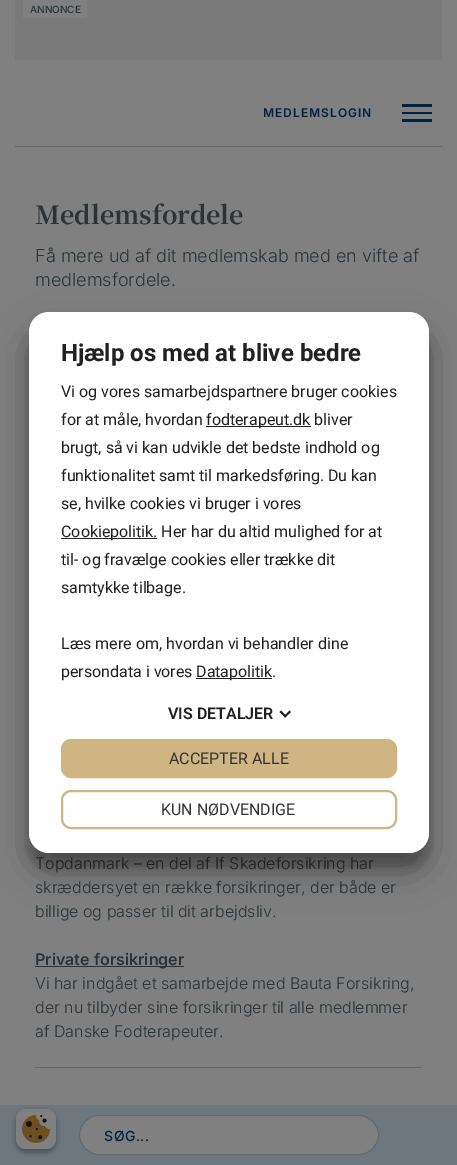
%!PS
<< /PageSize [457 1165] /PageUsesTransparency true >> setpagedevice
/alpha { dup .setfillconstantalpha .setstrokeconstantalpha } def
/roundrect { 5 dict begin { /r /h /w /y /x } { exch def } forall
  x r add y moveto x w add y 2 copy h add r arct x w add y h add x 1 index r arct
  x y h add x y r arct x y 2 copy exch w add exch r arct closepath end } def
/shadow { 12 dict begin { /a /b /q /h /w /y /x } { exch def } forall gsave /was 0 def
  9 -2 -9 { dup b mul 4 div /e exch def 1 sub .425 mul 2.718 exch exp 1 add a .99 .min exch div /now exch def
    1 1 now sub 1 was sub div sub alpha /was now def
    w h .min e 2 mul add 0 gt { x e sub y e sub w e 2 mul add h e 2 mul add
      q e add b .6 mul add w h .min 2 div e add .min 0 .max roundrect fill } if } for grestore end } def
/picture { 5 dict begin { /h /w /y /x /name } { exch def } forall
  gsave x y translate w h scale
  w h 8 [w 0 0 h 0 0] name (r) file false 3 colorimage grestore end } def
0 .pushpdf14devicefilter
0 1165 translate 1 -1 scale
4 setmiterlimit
0.502 setgray
0 0 457 1165 rectfill
0.478 setgray
15 0 427 60 rectfill
0.502 setgray
23 0 64 18 rectfill
/Inter-Medium [10 0 0 -10 0 0] selectfont
0.165 0.2 0.22 setrgbcolor
30 13 moveto (ANNONCE) show
0.4 0.412 0.416 setrgbcolor
15 146 427 1 rectfill
/Inter-SemiBold [12 0 0 -12 0 0] selectfont
0 0.133 0.267 setrgbcolor
263 117 moveto 1 0 (MEDLEMSLOGIN) ashow
402 104 30 3 rectfill
402 112 30 2 rectfill
402 119 30 3 rectfill
0.427 0.467 0.49 setrgbcolor
0 1105 457 60 rectfill
0.502 setgray
79.5 1115.5 299 39 19.5 roundrect gsave fill grestore
0.4 0.412 0.416 setrgbcolor
stroke
/Inter-Medium [14 0 0 -14 0 0] selectfont
0 0.133 0.267 setrgbcolor
104 1141 moveto 0.5 0 (SØG...) ashow
/NotoSerifJP-Bold [25 0 0 -25 0 0] selectfont
0.165 0.2 0.22 setrgbcolor
35 224 moveto (Medlemsfordele) show
/Inter-Light [18 0 0 -18 0 0] selectfont
35 262 moveto (Få mere ud af dit medlemskab med en vifte af) show
35 286 moveto (medlemsfordele.) show
/Inter-Light [16 0 0 -16 0 0] selectfont
35 869 moveto (Topdanmark – en del af If Skadeforsikring har) show
35 893 moveto (skræddersyet en række forsikringer, der både er) show
35 917 moveto (billige og passer til dit arbejdsliv.) show
35 966 149 1 rectfill
/Inter-SemiBold [16 0 0 -16 0 0] selectfont
35 965 moveto (Private forsikringer) show
/Inter-Light [16 0 0 -16 0 0] selectfont
35 989 moveto (Vi har indgået et samarbejde med Bauta Forsikring,) show
35 1013 moveto (der nu tilbyder sine forsikringer til alle medlemmer) show
35 1037 moveto (af Danske Fodterapeuter.) show
0.4 setgray
35 1067 387 1 rectfill
0 setgray
29 327 400 541 20 6 0.22 shadow
29 331 400 541 20 19 0.3 shadow
1 setgray
29 312 400 541 20 roundrect fill
/Roboto-Bold [24 0 0 -24 0 0] selectfont
0.129 setgray
61 361 moveto (Hjælp os med at blive bedre) show
/Roboto-Regular [16 0 0 -16 0 0] selectfont
61 397 moveto (Vi og vores samarbejdspartnere bruger cookies) show
61 425 moveto (for at måle, hvordan) show
206 426 105 1 rectfill
206 425 moveto (fodterapeut.dk bliver) show
61 453 moveto (brugt, så vi kan udvikle det bedste indhold og) show
61 481 moveto (funktionalitet samt til markedsføring. Du kan) show
61 509 moveto (se, hvilke cookies vi bruger i vores) show
61 538 96 1 rectfill
61 537 moveto (Cookiepolitik. Her har du altid mulighed for at) show
61 565 moveto (til- og fravælge cookies eller trække dit) show
61 593 moveto (samtykke tilbage.) show
61 649 moveto (Læs mere om, hvordan vi behandler dine) show
61 677 moveto (persondata i vores) show
196 678 76 1 rectfill
196 677 moveto (Datapolitik.) show
/Roboto-SemiBold [16 0 0 -16 0 0] selectfont
168 719 moveto (VIS DETALJER) show
newpath 289.5 710.5 moveto 291 712 lineto 285 717.5 lineto 284 716 lineto closepath fill
newpath 281 710.5 moveto 286.5 716 lineto 285 717.5 lineto 279.5 712 lineto closepath fill
0.808 0.71 0.51 setrgbcolor
62 740 334 37 9 roundrect gsave fill grestore
2 setlinewidth
stroke
/Roboto-Regular [16 0 0 -16 0 0] selectfont
0.2 setgray
169 764 moveto (ACCEPTER ALLE) show
0.808 0.71 0.51 setrgbcolor
62 791 334 37 9 roundrect stroke
0.2 setgray
161 815 moveto (KUN NØDVENDIGE) show
0 setgray
16 1112 40 40 10 3 0.23 shadow
16 1112 40 40 10 3 0.16 shadow
0.502 setgray
16 1109 40 40 10 roundrect fill
(img1.rgb) 22 1115 28 28 picture
.poppdf14devicefilter showpage
